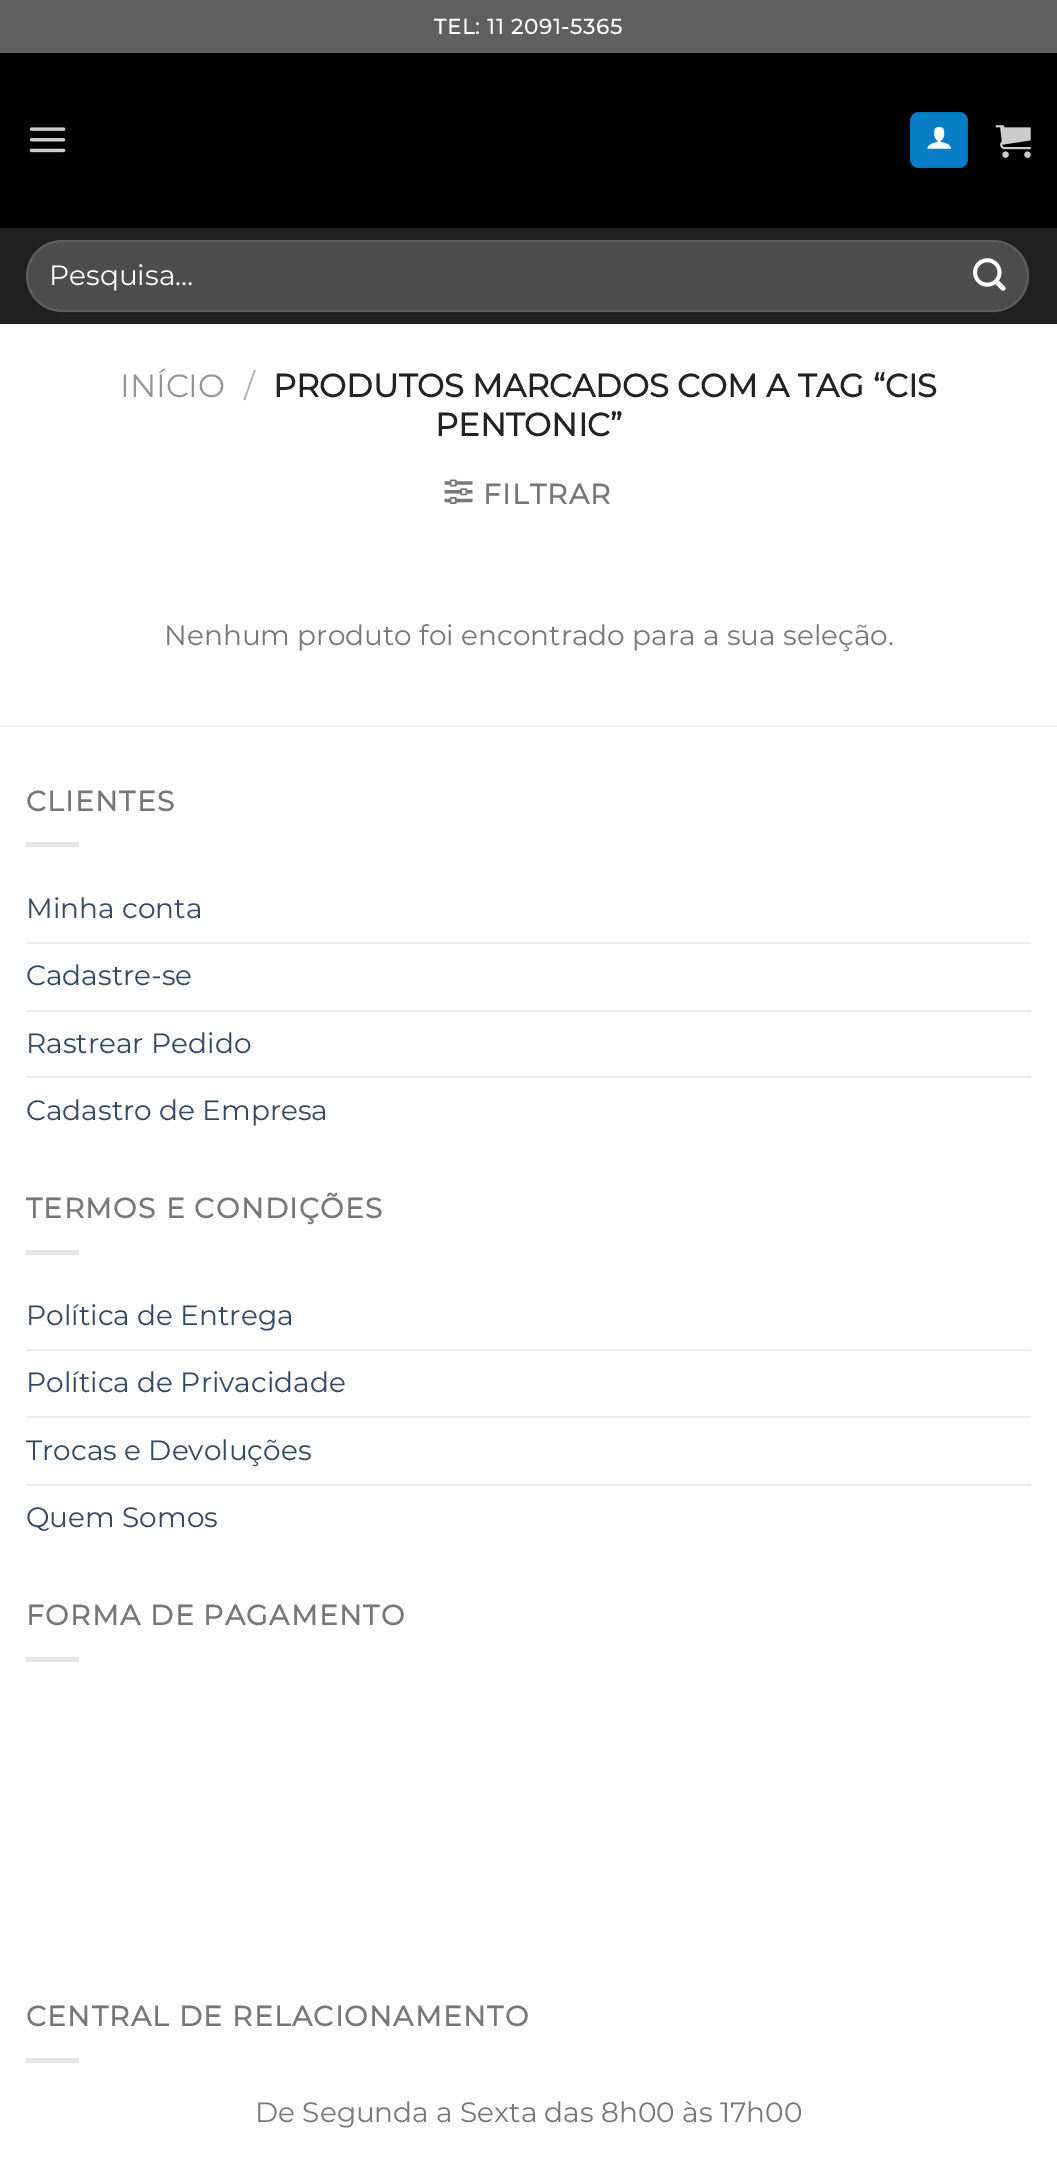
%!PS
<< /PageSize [1057 2172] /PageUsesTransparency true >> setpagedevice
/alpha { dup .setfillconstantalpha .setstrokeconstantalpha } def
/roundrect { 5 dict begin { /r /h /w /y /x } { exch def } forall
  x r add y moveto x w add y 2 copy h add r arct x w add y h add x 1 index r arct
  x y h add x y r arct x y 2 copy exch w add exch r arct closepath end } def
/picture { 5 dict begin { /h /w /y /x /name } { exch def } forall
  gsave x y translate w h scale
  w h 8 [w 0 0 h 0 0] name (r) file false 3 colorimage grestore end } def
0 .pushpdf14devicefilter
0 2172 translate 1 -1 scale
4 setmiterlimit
1 setgray
0 0 1057 2172 rectfill
0.376 setgray
0 0 1057 53 rectfill
/Montserrat-Bold [21 0 0 -21 0 0] selectfont
1 setgray
434 34 moveto 1 0 (TEL: 11 2091-5365) ashow
0 setgray
0 53 1057 175 rectfill
(img1.rgb) 29 127 37 26 picture
0.031 0.494 0.784 setrgbcolor
910 112 58 56 9 roundrect fill
0.05 alpha
0 setgray
2 setlinewidth
911 113 56 54 rectstroke
1 alpha
(img2.rgb) 927 126 24 23 picture
(img3.rgb) 995 125 36 33 picture
0.129 setgray
0 228 1057 96 rectfill
0.302 setgray
26 240 1003 72 36 roundrect fill
0.09 alpha
1 setgray
27 241 1001 70 35 roundrect stroke
/Montserrat-Thin [28 0 0 -28 0 0] selectfont
1 alpha
49 285 moveto (Pesquisa…) show
(img4.rgb) 973 258 33 33 picture
/Montserrat-Thin [32.2 0 0 -32.2 0 0] selectfont
0.58 setgray
120 397 moveto (INÍCIO) show
0.698 setgray
244 397 moveto (/) show
/Montserrat-Bold [32.2 0 0 -32.2 0 0] selectfont
0.133 setgray
273 397 moveto (PRODUTOS MARCADOS COM A TAG “CIS) show
435 436 moveto (PENTONIC”) show
(img5.rgb) 444 479 29 25 picture
/Montserrat-Bold [28 0 0 -28 0 0] selectfont
0.467 setgray
483 504 moveto 1.4 0 (FILTRAR) ashow
/Montserrat-Thin [28 0 0 -28 0 0] selectfont
164 645 moveto (Nenhum produto foi encontrado para a sua seleção.) show
0.949 setgray
0 725 1057 2 rectfill
/Montserrat-Bold [28 0 0 -28 0 0] selectfont
0.467 setgray
26 811 moveto 1.4 0 (CLIENTES) ashow
0.902 setgray
26 842 53 5 rectfill
/Montserrat-Thin [28 0 0 -28 0 0] selectfont
0.2 0.282 0.384 setrgbcolor
26 918 moveto (Minha conta) show
0.925 setgray
26 942 1005 2 rectfill
0.2 0.282 0.384 setrgbcolor
26 985 moveto (Cadastre-se) show
0.925 setgray
26 1010 1005 2 rectfill
0.2 0.282 0.384 setrgbcolor
26 1053 moveto (Rastrear Pedido) show
0.925 setgray
26 1076 1005 2 rectfill
0.2 0.282 0.384 setrgbcolor
26 1120 moveto (Cadastro de Empresa) show
/Montserrat-Bold [28 0 0 -28 0 0] selectfont
0.467 setgray
26 1218 moveto 1.4 0 (TERMOS E CONDIÇÕES) ashow
0.902 setgray
26 1250 53 5 rectfill
/Montserrat-Thin [28 0 0 -28 0 0] selectfont
0.2 0.282 0.384 setrgbcolor
26 1325 moveto (Política de Entrega) show
0.925 setgray
26 1349 1005 2 rectfill
0.2 0.282 0.384 setrgbcolor
26 1392 moveto (Política de Privacidade) show
0.925 setgray
26 1416 1005 2 rectfill
0.2 0.282 0.384 setrgbcolor
26 1460 moveto (Trocas e Devoluções) show
0.925 setgray
26 1484 1005 2 rectfill
0.2 0.282 0.384 setrgbcolor
26 1527 moveto (Quem Somos) show
/Montserrat-Bold [28 0 0 -28 0 0] selectfont
0.467 setgray
26 1625 moveto 1.4 0 (FORMA DE PAGAMENTO) ashow
0.902 setgray
26 1657 53 5 rectfill
0.467 setgray
26 2026 moveto 1.4 0 (CENTRAL DE RELACIONAMENTO) ashow
0.902 setgray
26 2058 53 5 rectfill
/Montserrat-Thin [28 0 0 -28 0 0] selectfont
0.467 setgray
255 2122 moveto (De Segunda a Sexta das 8h00 às 17h00) show
.poppdf14devicefilter showpage
